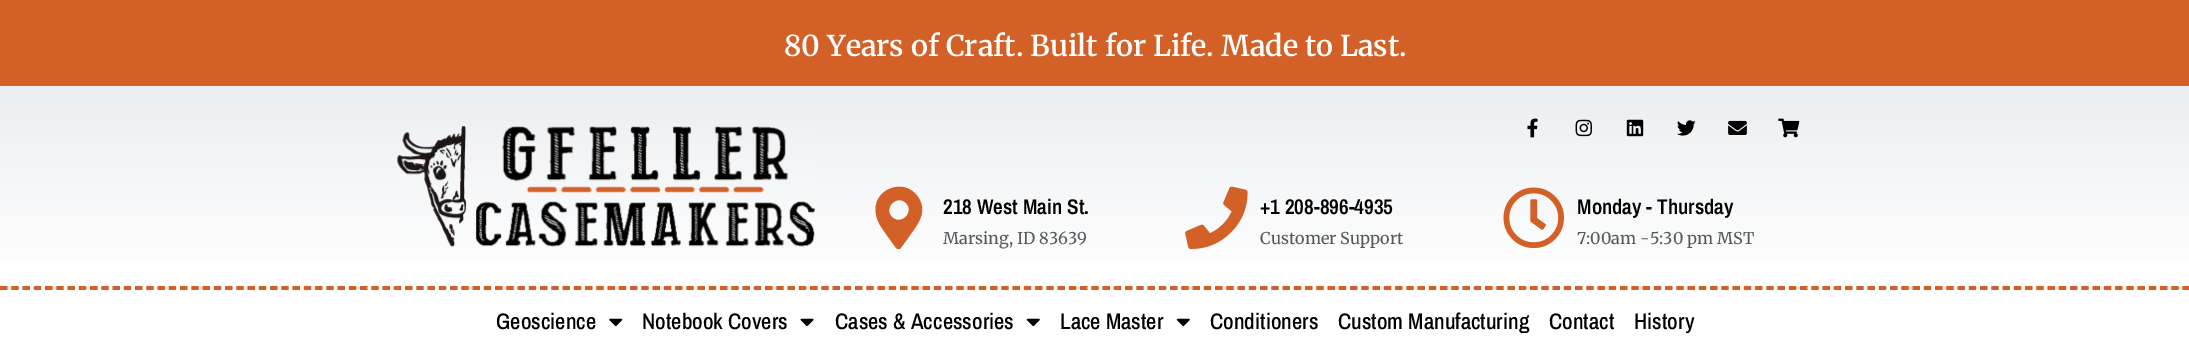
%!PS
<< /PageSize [2189 358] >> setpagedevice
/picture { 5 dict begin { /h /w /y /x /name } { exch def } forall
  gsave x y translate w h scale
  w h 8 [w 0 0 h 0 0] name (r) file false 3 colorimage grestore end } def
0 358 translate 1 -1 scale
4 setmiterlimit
1 setgray
0 0 2189 358 rectfill
0.824 0.376 0.153 setrgbcolor
0 0 2189 86 rectfill
/Merriweather-SemiBold [28.75 0 0 -28.75 0 0] selectfont
1 setgray
784 56 moveto (80 Years of Craft. Built for Life. Made to Last.) show
gsave newpath 0 86 moveto 2189 86 lineto 2189 261 lineto 0 261 lineto closepath clip newpath
<< /ShadingType 2 /ColorSpace /DeviceRGB /Coords [1095 86 1095 286] /Extend [true true] /Function << /FunctionType 2 /Domain [0 1] /C0 [0.922 0.933 0.945] /C1 [1 1 1] /N 1 >> >> shfill grestore
(img1.rgb) 397 126 419 121 picture
(img2.rgb) 1527 118 11 20 picture
(img3.rgb) 1575 119 17 18 picture
(img4.rgb) 1626 119 18 18 picture
(img5.rgb) 1677 120 19 16 picture
(img6.rgb) 1728 120 19 15 picture
(img7.rgb) 1778 118 22 20 picture
0.824 0.376 0.153 setrgbcolor
newpath 896 248 moveto 886 234 lineto 882 228 877 222 876 214 curveto 871 190 904 176 918 197 curveto 929 213 916 226 908 238 curveto 900 249 lineto 899 249 897 249 896 248 curveto closepath 892 217 moveto 901 226 915 212 906 203 curveto 897 194 883 208 892 217 curveto closepath fill
/ArchivoNarrow-SemiBold [21.25 0 0 -21.25 0 0] selectfont
0 setgray
943 214 moveto (218 West Main St.) show
/Merriweather-Regular [16.25 0 0 -16.25 0 0] selectfont
0.329 0.349 0.373 setrgbcolor
943 244 moveto (Marsing, ID 83639) show
(img8.rgb) 1185 186 63 64 picture
/ArchivoNarrow-SemiBold [21.25 0 0 -21.25 0 0] selectfont
0 setgray
1260 214 moveto (+1 208-896-4935) show
/Merriweather-Regular [16.25 0 0 -16.25 0 0] selectfont
0.329 0.349 0.373 setrgbcolor
1260 244 moveto (Customer Support) show
(img9.rgb) 1503 187 61 62 picture
/ArchivoNarrow-SemiBold [21.25 0 0 -21.25 0 0] selectfont
0 setgray
1577 214 moveto (Monday - Thursday) show
/Merriweather-Regular [16.25 0 0 -16.25 0 0] selectfont
0.329 0.349 0.373 setrgbcolor
1577 244 moveto (7:00am -5:30 pm MST) show
0.824 0.376 0.153 setrgbcolor
3.8 setlinewidth
[7.5 3.75] 0 setdash
newpath 0 288 moveto 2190 288 lineto stroke
/ArchivoNarrow-Medium [22.5 0 0 -22.5 0 0] selectfont
0 setgray
496 329 moveto (Geoscience) show
(img10.rgb) 609 318 14 9 picture
642 329 moveto (Notebook Covers) show
(img11.rgb) 800 318 14 9 picture
835 329 moveto (Cases & Accessories) show
(img12.rgb) 1026 318 14 9 picture
1060 329 moveto (Lace Master) show
(img12.rgb) 1176 318 14 9 picture
1210 329 moveto (Conditioners) show
1338 329 moveto (Custom Manufacturing) show
1549 329 moveto (Contact) show
1634 329 moveto (History) show
showpage
